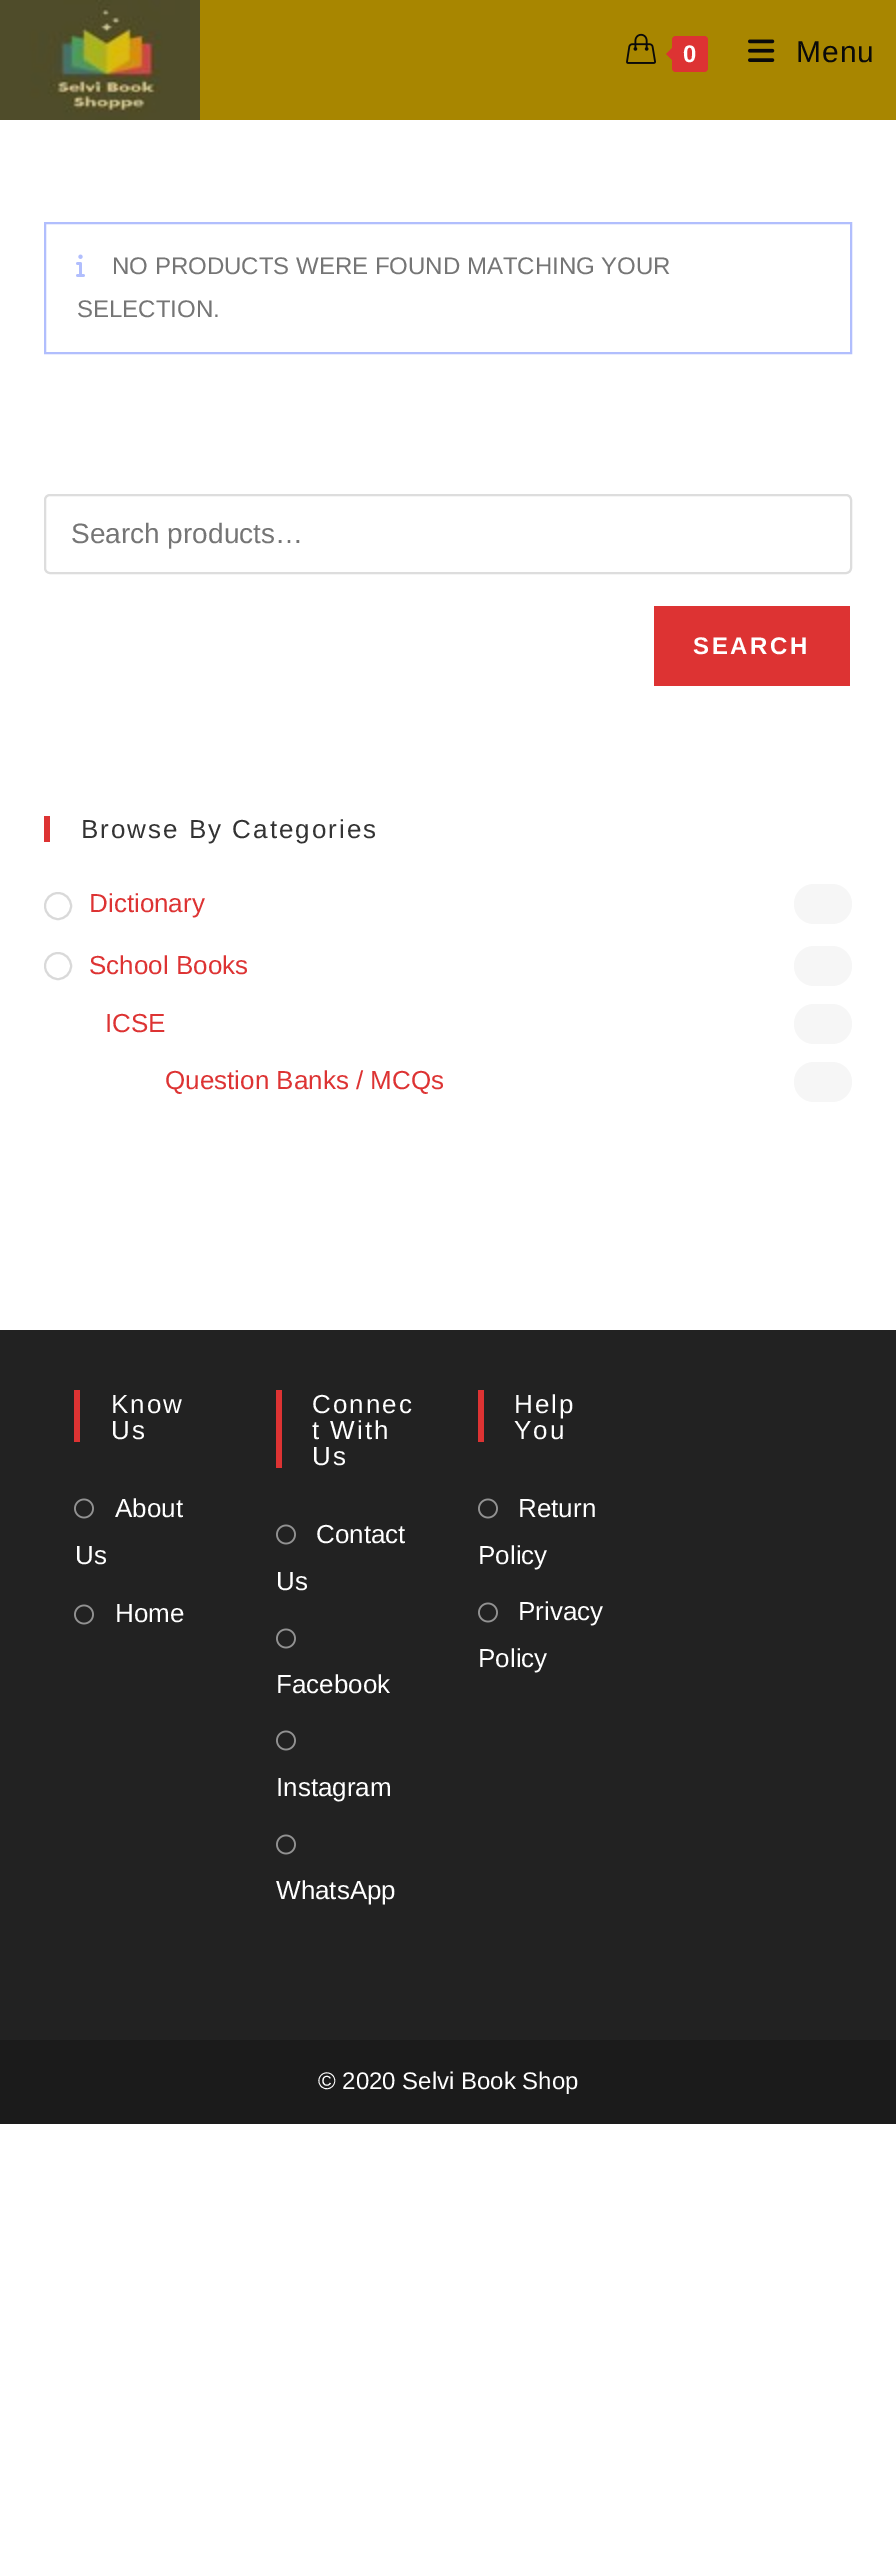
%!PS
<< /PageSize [896 2553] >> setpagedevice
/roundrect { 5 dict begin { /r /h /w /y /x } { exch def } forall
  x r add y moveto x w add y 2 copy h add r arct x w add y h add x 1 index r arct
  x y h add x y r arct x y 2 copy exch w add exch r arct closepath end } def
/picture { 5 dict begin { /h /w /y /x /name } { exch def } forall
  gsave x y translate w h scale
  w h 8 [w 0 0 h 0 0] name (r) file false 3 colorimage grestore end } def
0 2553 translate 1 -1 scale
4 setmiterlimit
1 setgray
0 0 896 2553 rectfill
0.659 0.525 0 setrgbcolor
0 0 896 120 rectfill
(img1.rgb) 0 0 200 120 picture
(img2.rgb) 626 33 30 31 picture
0.867 0.2 0.2 setrgbcolor
672 36 36 36 4 roundrect fill
newpath 676 44 moveto 676 64 lineto 666 54 lineto closepath fill
/LiberationSans-Bold [24 0 0 -24 0 0] selectfont
1 setgray
683 62 moveto 1 0 (0) ashow
(img3.rgb) 748 39 27 23 picture
/LiberationSans-Regular [30 0 0 -30 0 0] selectfont
0.039 setgray
796 62 moveto 1 0 (Menu) ashow
0.694 0.745 0.992 setrgbcolor
2 setlinewidth
45 223 806 130 rectstroke
(img4.rgb) 76 254 9 23 picture
/LiberationSans-Regular [24 0 0 -24 0 0] selectfont
0.459 setgray
112 274 moveto (NO PRODUCTS WERE FOUND MATCHING YOUR) show
77 317 moveto (SELECTION.) show
0.867 setgray
45 495 806 78 5 roundrect stroke
/LiberationSans-Regular [28 0 0 -28 0 0] selectfont
0.459 setgray
71 543 moveto (Search products…) show
0.867 0.2 0.2 setrgbcolor
654 606 196 80 rectfill
/LiberationSans-Bold [24 0 0 -24 0 0] selectfont
1 setgray
693 654 moveto 2.5 0 (SEARCH) ashow
0.867 0.2 0.2 setrgbcolor
44 816 6 26 rectfill
/LiberationSans-Regular [26 0 0 -26 0 0] selectfont
0.2 setgray
81 838 moveto 2 0 (Browse By Categories) ashow
0.851 setgray
newpath 58 906 13 0 360 arc closepath stroke
0.867 0.2 0.2 setrgbcolor
89 912 moveto (Dictionary) show
0.965 setgray
794 884 58 40 20 roundrect fill
0.851 setgray
newpath 58 966 13 0 360 arc closepath stroke
0.867 0.2 0.2 setrgbcolor
89 974 moveto (School Books) show
0.965 setgray
794 946 58 40 20 roundrect fill
0.867 0.2 0.2 setrgbcolor
105 1032 moveto (ICSE) show
0.965 setgray
794 1004 58 40 20 roundrect fill
0.867 0.2 0.2 setrgbcolor
165 1089 moveto (Question Banks / MCQs) show
0.965 setgray
794 1062 58 40 20 roundrect fill
0.133 setgray
0 1330 896 710 rectfill
0.867 0.2 0.2 setrgbcolor
74 1390 6 52 rectfill
1 setgray
111 1413 moveto 2 0 (Know) ashow
111 1439 moveto 2 0 (Us) ashow
(img5.rgb) 74 1498 20 21 picture
115 1517 moveto (About) show
75 1564 moveto (Us) show
(img5.rgb) 74 1604 20 21 picture
115 1622 moveto (Home) show
0.867 0.2 0.2 setrgbcolor
276 1390 6 78 rectfill
1 setgray
312 1413 moveto 2 0 (Connec) ashow
312 1439 moveto 2 0 (t With) ashow
312 1465 moveto 2 0 (Us) ashow
(img5.rgb) 276 1524 20 21 picture
316 1543 moveto (Contact) show
276 1590 moveto (Us) show
(img5.rgb) 276 1628 20 21 picture
276 1693 moveto (Facebook) show
(img5.rgb) 276 1730 20 21 picture
276 1796 moveto (Instagram) show
(img5.rgb) 276 1834 20 21 picture
276 1899 moveto (WhatsApp) show
0.867 0.2 0.2 setrgbcolor
478 1390 6 52 rectfill
1 setgray
514 1413 moveto 2 0 (Help) ashow
514 1439 moveto 2 0 (You) ashow
(img5.rgb) 478 1498 20 21 picture
518 1517 moveto (Return) show
478 1564 moveto (Policy) show
(img5.rgb) 478 1602 20 21 picture
518 1620 moveto (Privacy) show
478 1667 moveto (Policy) show
0.106 setgray
0 2040 896 84 rectfill
/LiberationSans-Regular [24 0 0 -24 0 0] selectfont
1 setgray
318 2089 moveto (© 2020 Selvi Book Shop) show
showpage
